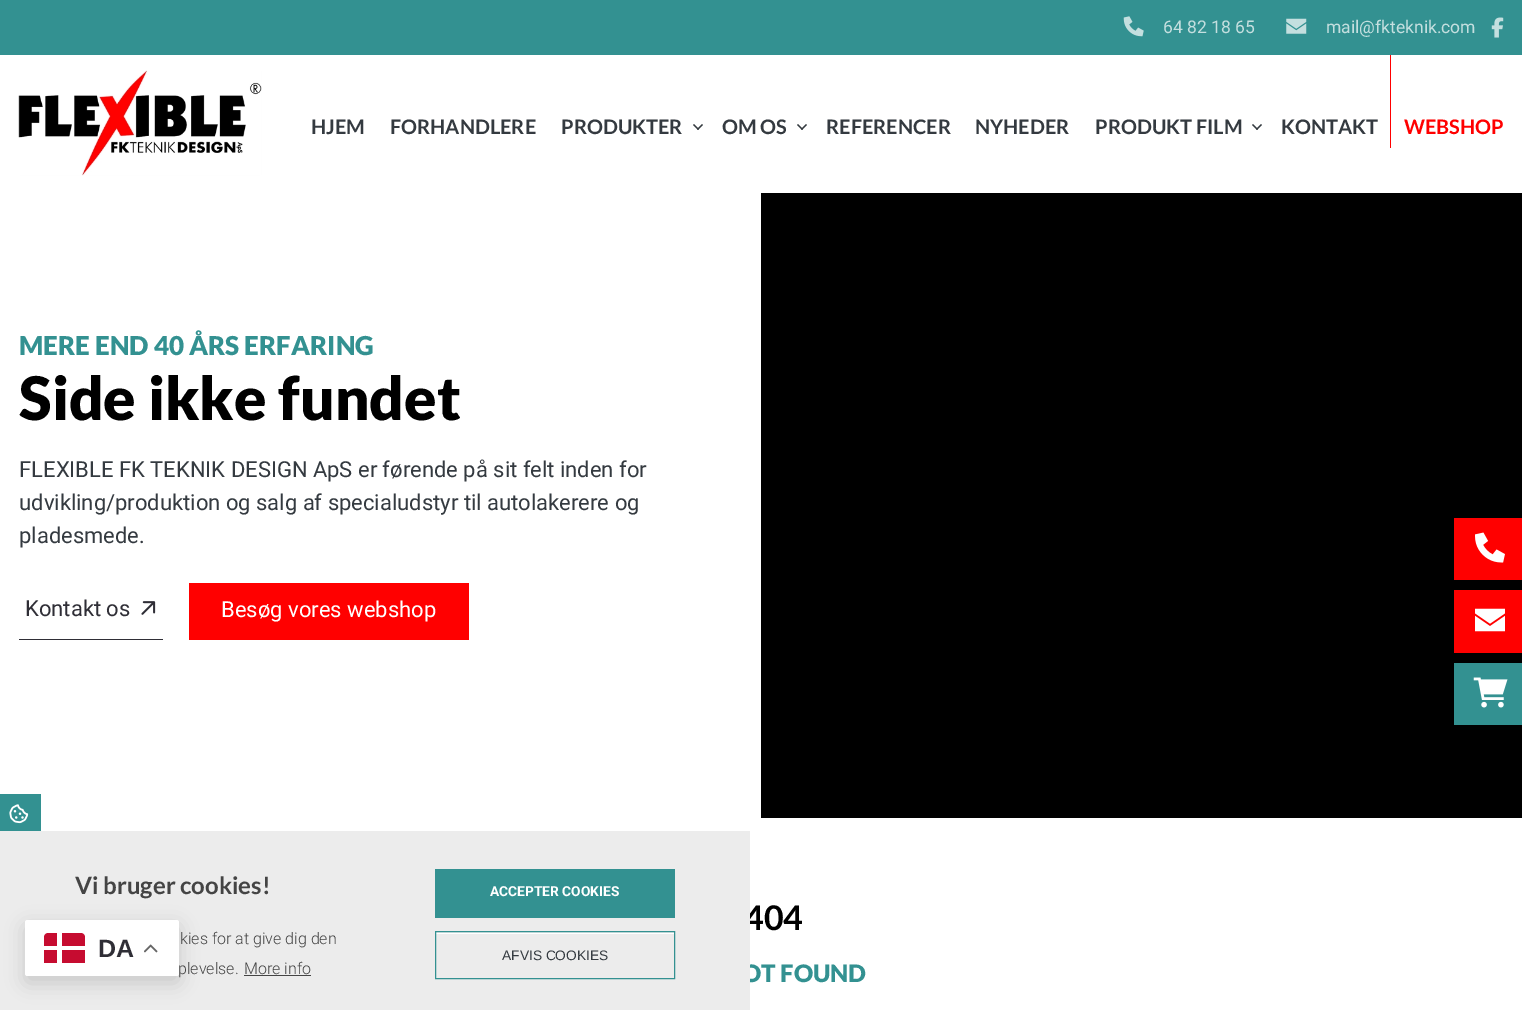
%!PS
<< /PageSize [1522 1010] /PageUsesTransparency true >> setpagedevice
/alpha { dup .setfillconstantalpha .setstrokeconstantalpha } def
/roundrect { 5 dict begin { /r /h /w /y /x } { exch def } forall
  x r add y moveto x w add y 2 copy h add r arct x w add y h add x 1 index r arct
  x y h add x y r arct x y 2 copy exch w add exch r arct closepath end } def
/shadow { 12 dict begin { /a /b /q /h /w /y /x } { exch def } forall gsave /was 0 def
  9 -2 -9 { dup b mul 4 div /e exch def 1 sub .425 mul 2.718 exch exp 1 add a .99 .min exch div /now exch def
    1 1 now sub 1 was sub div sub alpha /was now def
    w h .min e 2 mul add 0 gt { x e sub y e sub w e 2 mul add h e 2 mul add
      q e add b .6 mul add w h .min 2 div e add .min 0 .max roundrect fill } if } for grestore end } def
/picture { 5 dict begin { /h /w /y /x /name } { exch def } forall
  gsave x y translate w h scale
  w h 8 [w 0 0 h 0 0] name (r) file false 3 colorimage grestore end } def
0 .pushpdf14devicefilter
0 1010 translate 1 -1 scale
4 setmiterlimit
1 setgray
0 0 1522 1010 rectfill
0.2 0.569 0.569 setrgbcolor
0 0 1522 55 rectfill
(img1.rgb) 1123 16 21 21 picture
/Roboto-Regular [17.5 0 0 -17.5 0 0] selectfont
0.769 0.875 0.875 setrgbcolor
1163 33 moveto (64 82 18 65) show
(img2.rgb) 1286 18 21 16 picture
1326 33 moveto (mail@fkteknik.com) show
(img3.rgb) 1491 17 13 21 picture
(img4.rgb) 18 70 244 106 picture
/Lato-Bold [20 0 0 -20 0 0] selectfont
0.204 0.227 0.251 setrgbcolor
311 134 moveto (HJEM) show
390 134 moveto (FORHANDLERE) show
561 134 moveto (PRODUKTER) show
newpath 703 125 moveto 698 130 lineto 697 129 lineto 702 124 lineto closepath fill
newpath 699 129 moveto 698 130 lineto 693 125 lineto 694 124 lineto closepath fill
722 134 moveto (OM OS) show
newpath 807 125 moveto 802 130 lineto 801 129 lineto 806 124 lineto closepath fill
newpath 803 129 moveto 802 130 lineto 797 125 lineto 798 124 lineto closepath fill
826 134 moveto (REFERENCER) show
975 134 moveto (NYHEDER) show
1095 134 moveto (PRODUKT FILM) show
newpath 1262 125 moveto 1257 130 lineto 1256 129 lineto 1261 124 lineto closepath fill
newpath 1258 129 moveto 1257 130 lineto 1252 125 lineto 1253 124 lineto closepath fill
1281 134 moveto (KONTAKT) show
1 0 0 setrgbcolor
1390 55 1 93 rectfill
1404 134 moveto (WEBSHOP) show
/Lato-Black [26 0 0 -26 0 0] selectfont
0.2 0.569 0.569 setrgbcolor
19 355 moveto (MERE END 40 ÅRS ERFARING) show
/Lato-Black [60 0 0 -60 0 0] selectfont
0 setgray
19 420 moveto (Side ikke fundet) show
/Roboto-Regular [22 0 0 -22 0 0] selectfont
0.204 0.227 0.251 setrgbcolor
19 477 moveto (FLEXIBLE FK TEKNIK DESIGN ApS er førende på sit felt inden for) show
19 510 moveto (udvikling/produktion og salg af specialudstyr til autolakerere og) show
19 543 moveto (pladesmede.) show
0.184 0.18 0.212 setrgbcolor
19 639 144 1 rectfill
25 616 moveto (Kontakt os) show
(img5.rgb) 141 601 15 14 picture
1 0 0 setrgbcolor
189 583 280 57 rectfill
1 setgray
221 617 moveto (Besøg vores webshop) show
0 setgray
761 193 761 625 rectfill
1 0 0 setrgbcolor
1454 518 68 62 rectfill
(img6.rgb) 1475 532 30 31 picture
1454 590 68 63 rectfill
(img7.rgb) 1475 608 30 24 picture
0.2 0.569 0.569 setrgbcolor
1454 663 68 62 rectfill
(img8.rgb) 1473 677 35 31 picture
/Lato-Bold [34 0 0 -34 0 0] selectfont
0 setgray
744 930 moveto (404) show
/Lato-Black [24 0 0 -24 0 0] selectfont
0.2 0.569 0.569 setrgbcolor
742 982 moveto (OT FOUND) show
0.925 setgray
0 831 750 179 rectfill
0 setgray
25 926 154 57 2.5 9.5 0.15 shadow
1 setgray
25 920 154 56 2.5 roundrect fill
gsave
44 933 41 31 4 roundrect clip newpath
0.776 0.047 0.188 setrgbcolor
newpath 48 933 moveto 81 933 lineto 83 933 85 935 85 937 curveto 85 963 lineto 44 963 lineto 44 937 lineto 44 935 46 933 48 933 curveto closepath fill
grestore
57 933 5 31 rectfill
44 946 41 4 rectfill
/LiberationSans-Bold [25 0 0 -25 0 0] selectfont
0.184 0.18 0.212 setrgbcolor
98 957 moveto (DA) show
(img9.rgb) 144 944 14 9 picture
0.2 0.569 0.569 setrgbcolor
0 794 41 37 rectfill
(img10.rgb) 9 804 20 20 picture
/Lato-Bold [24 0 0 -24 0 0] selectfont
0.267 setgray
75 894 moveto (Vi bruger cookies!) show
/Roboto-Light [16 0 0 -16 0 0] selectfont
180 944 moveto (kies for at give dig den) show
178 974 moveto (plevelse.) show
244 974 moveto (More info) show
244 975 67 1 rectfill
0.2 0.569 0.569 setrgbcolor
435 869 240 49 rectfill
/Roboto-Bold [13.75 0 0 -13.75 0 0] selectfont
1 setgray
490 896 moveto (ACCEPTER COOKIES) show
436 933 238 1 rectfill
0.2 0.569 0.569 setrgbcolor
435.5 931.5 239 47 rectstroke
/LiberationSans-Regular [13.75 0 0 -13.75 0 0] selectfont
0.204 0.227 0.251 setrgbcolor
502 960 moveto (AFVIS COOKIES) show
.poppdf14devicefilter showpage
